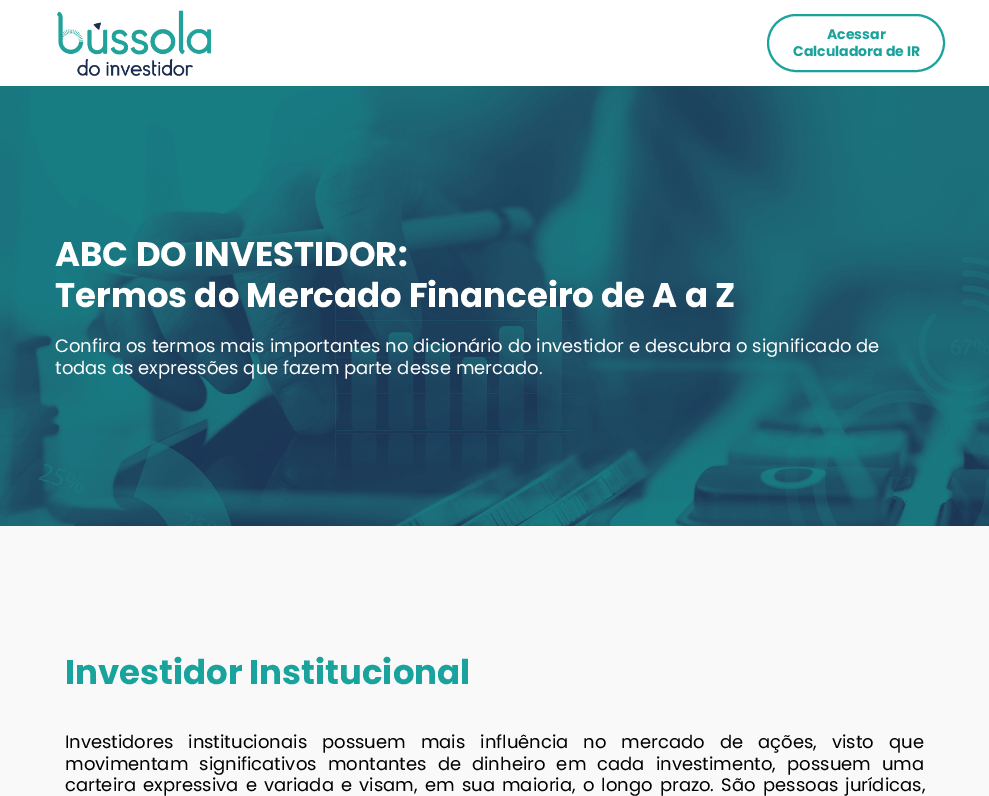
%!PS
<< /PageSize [989 796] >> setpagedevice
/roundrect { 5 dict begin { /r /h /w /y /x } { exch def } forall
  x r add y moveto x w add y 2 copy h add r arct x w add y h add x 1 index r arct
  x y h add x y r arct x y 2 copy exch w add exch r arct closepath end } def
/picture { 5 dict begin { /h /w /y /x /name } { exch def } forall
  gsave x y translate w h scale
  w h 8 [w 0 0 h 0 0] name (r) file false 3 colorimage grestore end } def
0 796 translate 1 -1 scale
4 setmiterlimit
1 setgray
0 0 989 796 rectfill
(img1.rgb) 57 10 155 66 picture
0.102 0.639 0.612 setrgbcolor
2 setlinewidth
768 15 176 56 28 roundrect stroke
/Poppins-Bold [14 0 0 -14 0 0] selectfont
827 39 moveto (Acessar) show
793 56 moveto (Calculadora de IR) show
(img2.rgb) 0 86 989 440 picture
/Poppins-Bold [34 0 0 -34 0 0] selectfont
1 setgray
55 266 moveto (ABC DO INVESTIDOR:) show
55 307 moveto (Termos do Mercado Financeiro de A a Z) show
/Poppins-Regular [18 0 0 -18 0 0] selectfont
55 352 moveto (Confira os termos mais importantes no dicionário do investidor e descubra o significado de) show
55 374 moveto (todas as expressões que fazem parte desse mercado.) show
0.976 setgray
0 526 989 270 rectfill
/Poppins-Bold [34 0 0 -34 0 0] selectfont
0.102 0.639 0.612 setrgbcolor
65 684 moveto (Investidor Institucional) show
/Poppins-Regular [18 0 0 -18 0 0] selectfont
0 setgray
65 748 moveto (I) show
69 748 moveto 10.25 0 32 (nvestidores institucionais) widthshow
322 748 moveto 10.25 0 32 (possuem mais influência no mercado de ações, visto que) widthshow
65 770 moveto 6.25 0 32 (movimentam significativos montantes de dinheiro em cada investimento, possuem uma) widthshow
65 791 moveto 2.4 0 32 (carteira expressiva e variada e visam, em sua maioria, o longo prazo. São pessoas jurídicas,) widthshow
showpage
